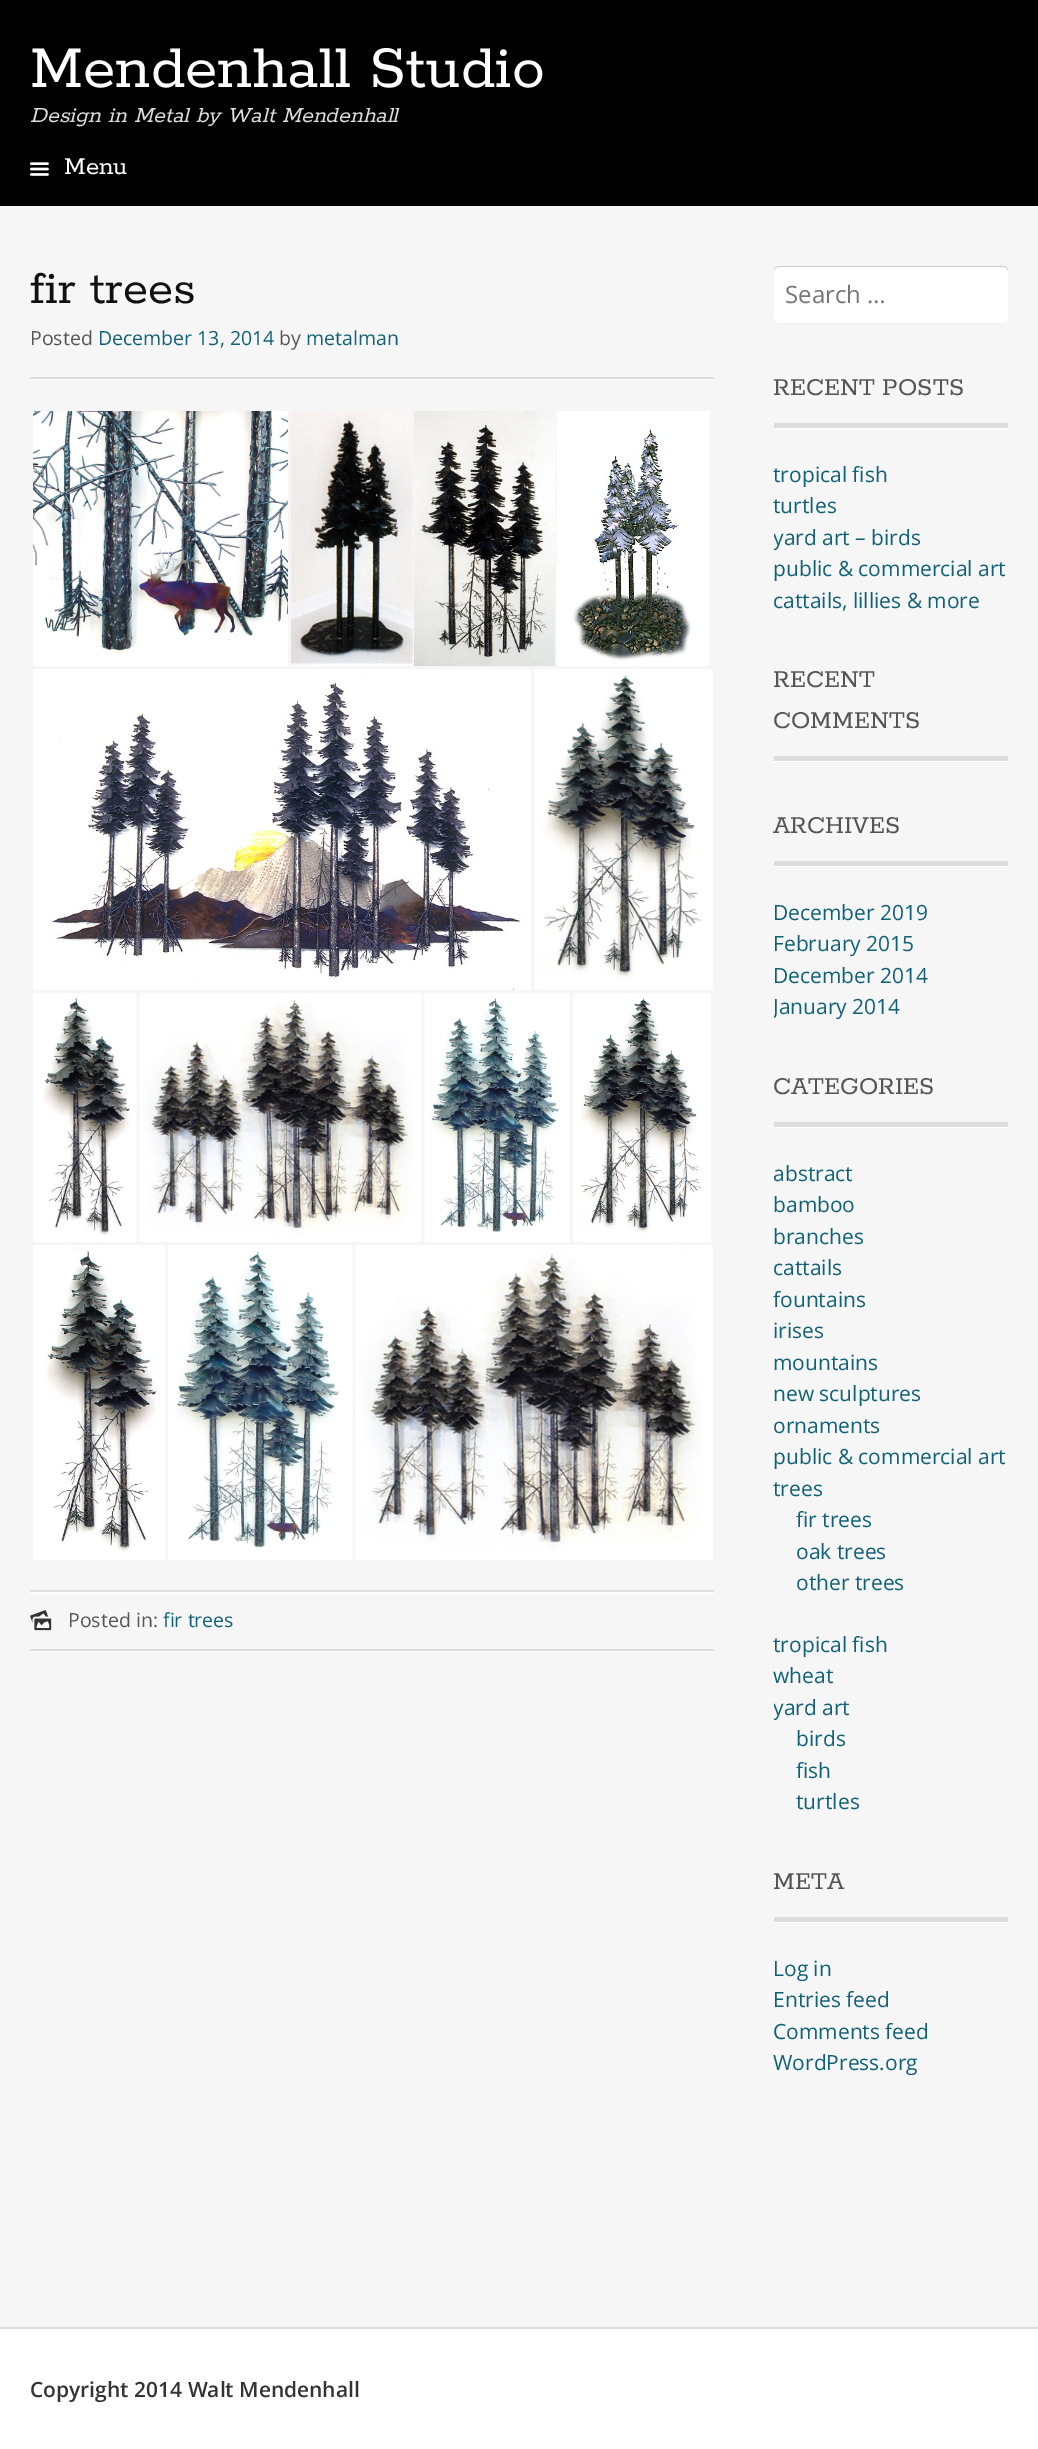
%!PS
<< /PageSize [1038 2449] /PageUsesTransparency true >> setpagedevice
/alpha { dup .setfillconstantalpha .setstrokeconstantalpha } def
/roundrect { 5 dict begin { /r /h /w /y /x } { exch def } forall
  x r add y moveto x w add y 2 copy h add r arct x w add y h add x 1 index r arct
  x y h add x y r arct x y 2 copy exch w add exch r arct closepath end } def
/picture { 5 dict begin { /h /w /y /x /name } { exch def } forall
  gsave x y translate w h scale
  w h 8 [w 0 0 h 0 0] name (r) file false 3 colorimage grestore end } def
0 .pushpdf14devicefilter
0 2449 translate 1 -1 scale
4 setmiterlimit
0.965 setgray
0 0 1038 2449 rectfill
0 setgray
0 0 1038 206 rectfill
/Rokkitt-Regular [66 0 0 -66 0 0] selectfont
1 setgray
30 87 moveto (Mendenhall Studio) show
/Rokkitt-Italic [24 0 0 -24 0 0] selectfont
0.867 setgray
30 122 moveto (Design in Metal by Walt Mendenhall) show
(img1.rgb) 30 162 19 14 picture
/Rokkitt-Regular [27 0 0 -27 0 0] selectfont
1 setgray
64 174 moveto (Menu) show
30 379 684 1 rectfill
0.867 setgray
30 377 684 2 rectfill
/Rokkitt-Regular [51 0 0 -51 0 0] selectfont
0.067 setgray
30 303 moveto (fir trees) show
/OpenSans-Regular [19.5 0 0 -19.5 0 0] selectfont
0.333 setgray
30 345 moveto (Posted) show
0.063 0.38 0.467 setrgbcolor
98 345 moveto (December 13, 2014) show
0.333 setgray
279 345 moveto (by) show
0.063 0.38 0.467 setrgbcolor
306 345 moveto (metalman) show
(img2.rgb) 33 411 255 255 picture
(img3.rgb) 291 411 122 255 picture
(img4.rgb) 414 411 141 255 picture
(img5.rgb) 556 411 154 255 picture
(img6.rgb) 33 669 498 321 picture
(img7.rgb) 534 669 179 321 picture
(img8.rgb) 33 993 104 249 picture
(img9.rgb) 139 993 283 249 picture
(img10.rgb) 424 993 146 249 picture
(img11.rgb) 573 993 138 249 picture
(img12.rgb) 33 1245 132 315 picture
(img13.rgb) 168 1245 185 315 picture
(img14.rgb) 355 1245 358 315 picture
1 setgray
30 1592 684 2 rectfill
0.867 setgray
30 1590 684 2 rectfill
(img15.rgb) 30 1610 22 21 picture
0.333 setgray
68 1627 moveto (Posted in:) show
0.063 0.38 0.467 setrgbcolor
163 1627 moveto (fir trees) show
1 setgray
30 1651 684 1 rectfill
0.867 setgray
30 1649 684 2 rectfill
0.941 setgray
newpath 774 318 moveto 774 319 lineto 774 322 776 324 779 324 curveto 1003 324 lineto 1006 324 1008 322 1008 319 curveto 1008 318 lineto 1008 320 1006 322 1004 322 curveto 778 322 lineto 776 322 774 320 774 318 curveto closepath fill
1 setgray
774 266 234 57 5 roundrect fill
0.2 alpha
0 setgray
newpath 778 267 moveto 1004 267 lineto 1006 267 1008 269 1008 272 curveto 1008 271 lineto 1008 268 1006 266 1003 266 curveto 779 266 lineto 776 266 774 268 774 271 curveto 774 272 lineto 774 269 776 267 778 267 curveto closepath fill
/OpenSans-Regular [24 0 0 -24 0 0] selectfont
1 alpha
0.459 setgray
785 303 moveto (Search …) show
1 setgray
774 428 234 1 rectfill
0.867 setgray
774 423 234 5 rectfill
/Rokkitt-Regular [27 0 0 -27 0 0] selectfont
0.333 setgray
773 395 moveto (RECENT POSTS) show
/OpenSans-Regular [21 0 0 -21 0 0] selectfont
0.063 0.38 0.467 setrgbcolor
773 482 moveto (tropical fish) show
773 513 moveto (turtles) show
gsave
774 266 234 1857 rectclip
773 545 moveto (yard art – birds) show
grestore
773 576 moveto (public & commercial art) show
773 608 moveto (cattails, lillies & more) show
1 setgray
774 761 234 1 rectfill
0.867 setgray
774 756 234 5 rectfill
/Rokkitt-Regular [27 0 0 -27 0 0] selectfont
0.333 setgray
773 687 moveto (RECENT) show
773 728 moveto (COMMENTS) show
1 setgray
774 866 234 1 rectfill
0.867 setgray
774 861 234 5 rectfill
0.333 setgray
773 833 moveto (ARCHIVES) show
/OpenSans-Regular [21 0 0 -21 0 0] selectfont
0.063 0.38 0.467 setrgbcolor
773 920 moveto (December 2019) show
773 951 moveto (February 2015) show
773 983 moveto (December 2014) show
gsave
774 266 234 1857 rectclip
773 1014 moveto (January 2014) show
grestore
1 setgray
774 1127 234 1 rectfill
0.867 setgray
774 1122 234 5 rectfill
/Rokkitt-Regular [27 0 0 -27 0 0] selectfont
0.333 setgray
773 1094 moveto (CATEGORIES) show
/OpenSans-Regular [21 0 0 -21 0 0] selectfont
0.063 0.38 0.467 setrgbcolor
773 1181 moveto (abstract) show
773 1212 moveto (bamboo) show
773 1244 moveto (branches) show
773 1275 moveto (cattails) show
773 1307 moveto (fountains) show
773 1338 moveto (irises) show
773 1370 moveto (mountains) show
773 1401 moveto (new sculptures) show
773 1433 moveto (ornaments) show
773 1464 moveto (public & commercial art) show
773 1496 moveto (trees) show
796 1527 moveto (fir trees) show
796 1559 moveto (oak trees) show
796 1590 moveto (other trees) show
773 1652 moveto (tropical fish) show
773 1683 moveto (wheat) show
gsave
774 266 234 1857 rectclip
773 1715 moveto (yard art) show
grestore
796 1746 moveto (birds) show
796 1778 moveto (fish) show
796 1809 moveto (turtles) show
1 setgray
774 1922 234 1 rectfill
0.867 setgray
774 1917 234 5 rectfill
/Rokkitt-Regular [27 0 0 -27 0 0] selectfont
0.333 setgray
773 1889 moveto (META) show
/OpenSans-Regular [21 0 0 -21 0 0] selectfont
0.063 0.38 0.467 setrgbcolor
773 1976 moveto (Log in) show
773 2007 moveto (Entries feed) show
773 2039 moveto (Comments feed) show
773 2070 moveto (WordPress.org) show
1 setgray
0 2329 1038 120 rectfill
0.867 setgray
0 2327 1038 2 rectfill
/OpenSans-SemiBold [21 0 0 -21 0 0] selectfont
0.2 setgray
30 2397 moveto (Copyright 2014 Walt Mendenhall) show
.poppdf14devicefilter showpage
